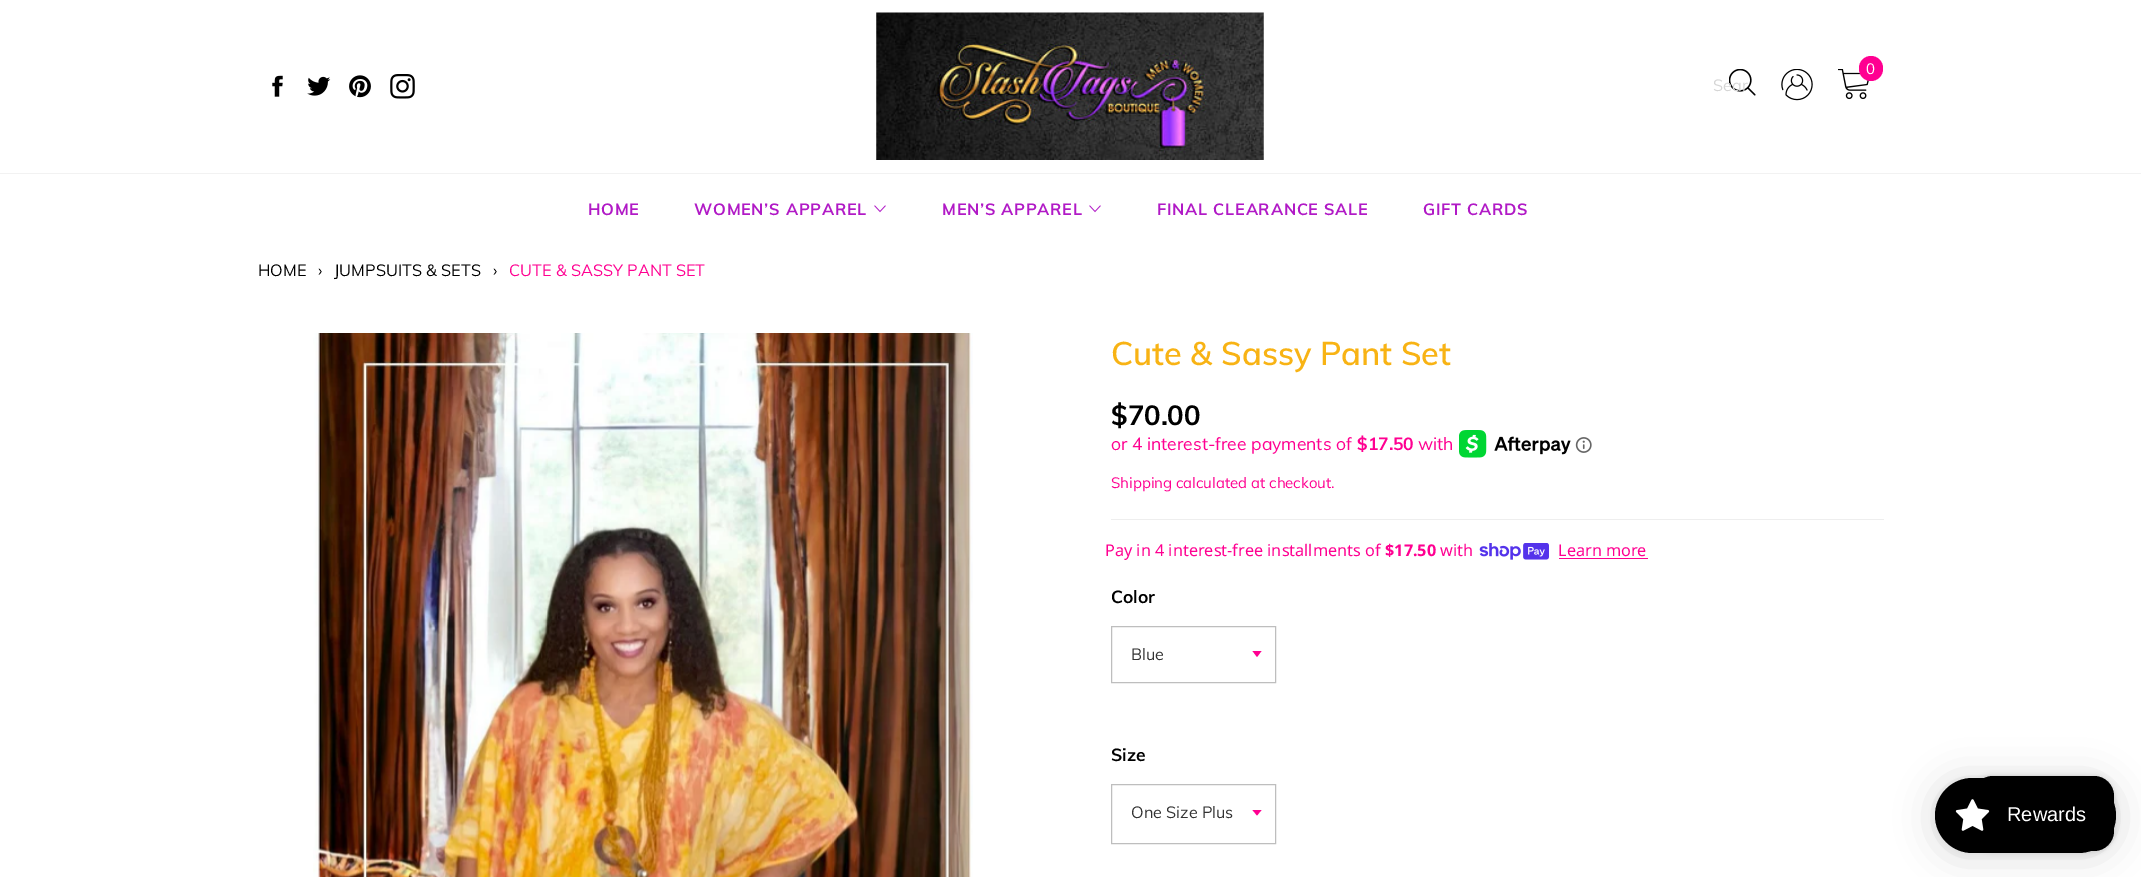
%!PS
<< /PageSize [2141 877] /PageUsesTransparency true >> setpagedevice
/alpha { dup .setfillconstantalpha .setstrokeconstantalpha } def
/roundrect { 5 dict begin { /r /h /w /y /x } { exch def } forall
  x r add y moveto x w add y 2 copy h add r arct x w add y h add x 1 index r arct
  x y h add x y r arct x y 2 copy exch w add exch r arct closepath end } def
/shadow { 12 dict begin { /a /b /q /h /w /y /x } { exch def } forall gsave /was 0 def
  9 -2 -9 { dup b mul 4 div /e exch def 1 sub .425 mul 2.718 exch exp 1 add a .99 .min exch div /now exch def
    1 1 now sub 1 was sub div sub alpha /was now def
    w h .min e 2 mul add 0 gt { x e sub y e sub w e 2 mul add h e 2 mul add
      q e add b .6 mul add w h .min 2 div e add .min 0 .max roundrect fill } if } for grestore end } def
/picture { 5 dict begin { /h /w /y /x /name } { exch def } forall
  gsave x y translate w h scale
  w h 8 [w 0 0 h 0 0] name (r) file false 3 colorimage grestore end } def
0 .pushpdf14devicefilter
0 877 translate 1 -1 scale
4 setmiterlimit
1 setgray
0 0 2141 877 rectfill
(img1.rgb) 272 75 11 22 picture
(img2.rgb) 307 76 24 20 picture
(img3.rgb) 349 75 22 23 picture
(img4.rgb) 390 74 25 25 picture
(img5.rgb) 876 12 388 148 picture
(img6.rgb) 1729 69 27 27 picture
/Muli-Regular [16.25 0 0 -16.25 0 0] selectfont
0.839 setgray
1713 91 moveto (Sear) show
(img7.rgb) 1781 69 32 32 picture
(img8.rgb) 1838 69 31 31 picture
1 0 0.569 setrgbcolor
1859 56 24 25 12 roundrect fill
/Muli-Regular [15 0 0 -15 0 0] selectfont
1 setgray
1866 74 moveto (0) show
0.949 setgray
0 173 2141 1 rectfill
/Muli-Bold [16.25 0 0 -16.25 0 0] selectfont
0.694 0.102 0.776 setrgbcolor
588 215 moveto 0.75 0 (HOME) ashow
694 215 moveto 0.75 0 (WOMEN’S APPAREL) ashow
(img9.rgb) 874 205 12 8 picture
942 215 moveto 0.75 0 (MEN’S APPAREL) ashow
(img9.rgb) 1089 205 12 8 picture
1157 215 moveto 0.75 0 (FINAL CLEARANCE SALE) ashow
1423 215 moveto 0.75 0 (GIFT CARDS) ashow
/Muli-Regular [16.25 0 0 -16.25 0 0] selectfont
0 setgray
258 276 moveto (HOME) show
318 276 moveto (›) show
334 276 moveto (JUMPSUITS & SETS) show
493 276 moveto (›) show
1 0 0.569 setrgbcolor
509 276 moveto (CUTE & SASSY PANT SET) show
(img10.rgb) 313 333 660 544 picture
/Muli-SemiBold [32.5 0 0 -32.5 0 0] selectfont
0.973 0.702 0.078 setrgbcolor
1111 365 moveto (Cute & Sassy Pant Set) show
/Muli-Bold [27.5 0 0 -27.5 0 0] selectfont
0 setgray
1111 425 moveto ($70.00) show
/Muli-Regular [17.5 0 0 -17.5 0 0] selectfont
1 0 0.569 setrgbcolor
1111 450 moveto (or 4 interest-free payments of) show
/Muli-Bold [17.5 0 0 -17.5 0 0] selectfont
1357 450 moveto ($17.50) show
/Muli-Regular [17.5 0 0 -17.5 0 0] selectfont
1418 450 moveto (with) show
(img11.rgb) 1459 430 112 28 picture
(img12.rgb) 1575 437 17 16 picture
/Muli-Regular [15 0 0 -15 0 0] selectfont
1111 488 moveto (Shipping calculated at checkout.) show
0.933 setgray
1111 519 773 1 rectfill
/NotoSans-Regular [16.25 0 0 -16.25 0 0] selectfont
1 0 0.569 setrgbcolor
1105 556 moveto (Pay in 4 interest-free installments of) show
/NotoSans-Bold [16.25 0 0 -16.25 0 0] selectfont
1385 556 moveto ($17.50) show
/NotoSans-Regular [16.25 0 0 -16.25 0 0] selectfont
1440 556 moveto (with) show
(img13.rgb) 1479 543 70 17 picture
1558 556 moveto (Learn more) show
1559 558 89 1 rectfill
/Muli-Bold [17.5 0 0 -17.5 0 0] selectfont
0 setgray
1111 603 moveto (Color) show
1 0 0.569 setrgbcolor
newpath 1252.5 651 moveto 1257 657 lineto 1261.5 651 lineto closepath fill
0.745 setgray
1111.5 626.5 164 56 rectstroke
/Muli-Regular [16.25 0 0 -16.25 0 0] selectfont
0.2 setgray
1131 660 moveto (Blue) show
/Muli-Bold [17.5 0 0 -17.5 0 0] selectfont
0 setgray
1111 761 moveto (Size) show
1 0 0.569 setrgbcolor
newpath 1252.5 810 moveto 1257 815.5 lineto 1261.5 810 lineto closepath fill
0.745 setgray
1111.5 784.5 164 59 rectstroke
/Muli-Regular [16.25 0 0 -16.25 0 0] selectfont
0.2 setgray
1131 818 moveto (One Size Plus) show
0 setgray
1973 776 141 75 20 3 0.15 shadow
1973 776 141 75 20 roundrect fill
1935 780 181 75 37.5 19 0.15 shadow
1935 779 181 75 37.5 4 0.05 shadow
1935 778 181 75 37.5 roundrect fill
(img14.rgb) 1955 799 35 32 picture
/LiberationSans-Regular [20 0 0 -20 0 0] selectfont
1 setgray
2007 821 moveto (Rewards) show
.poppdf14devicefilter showpage
